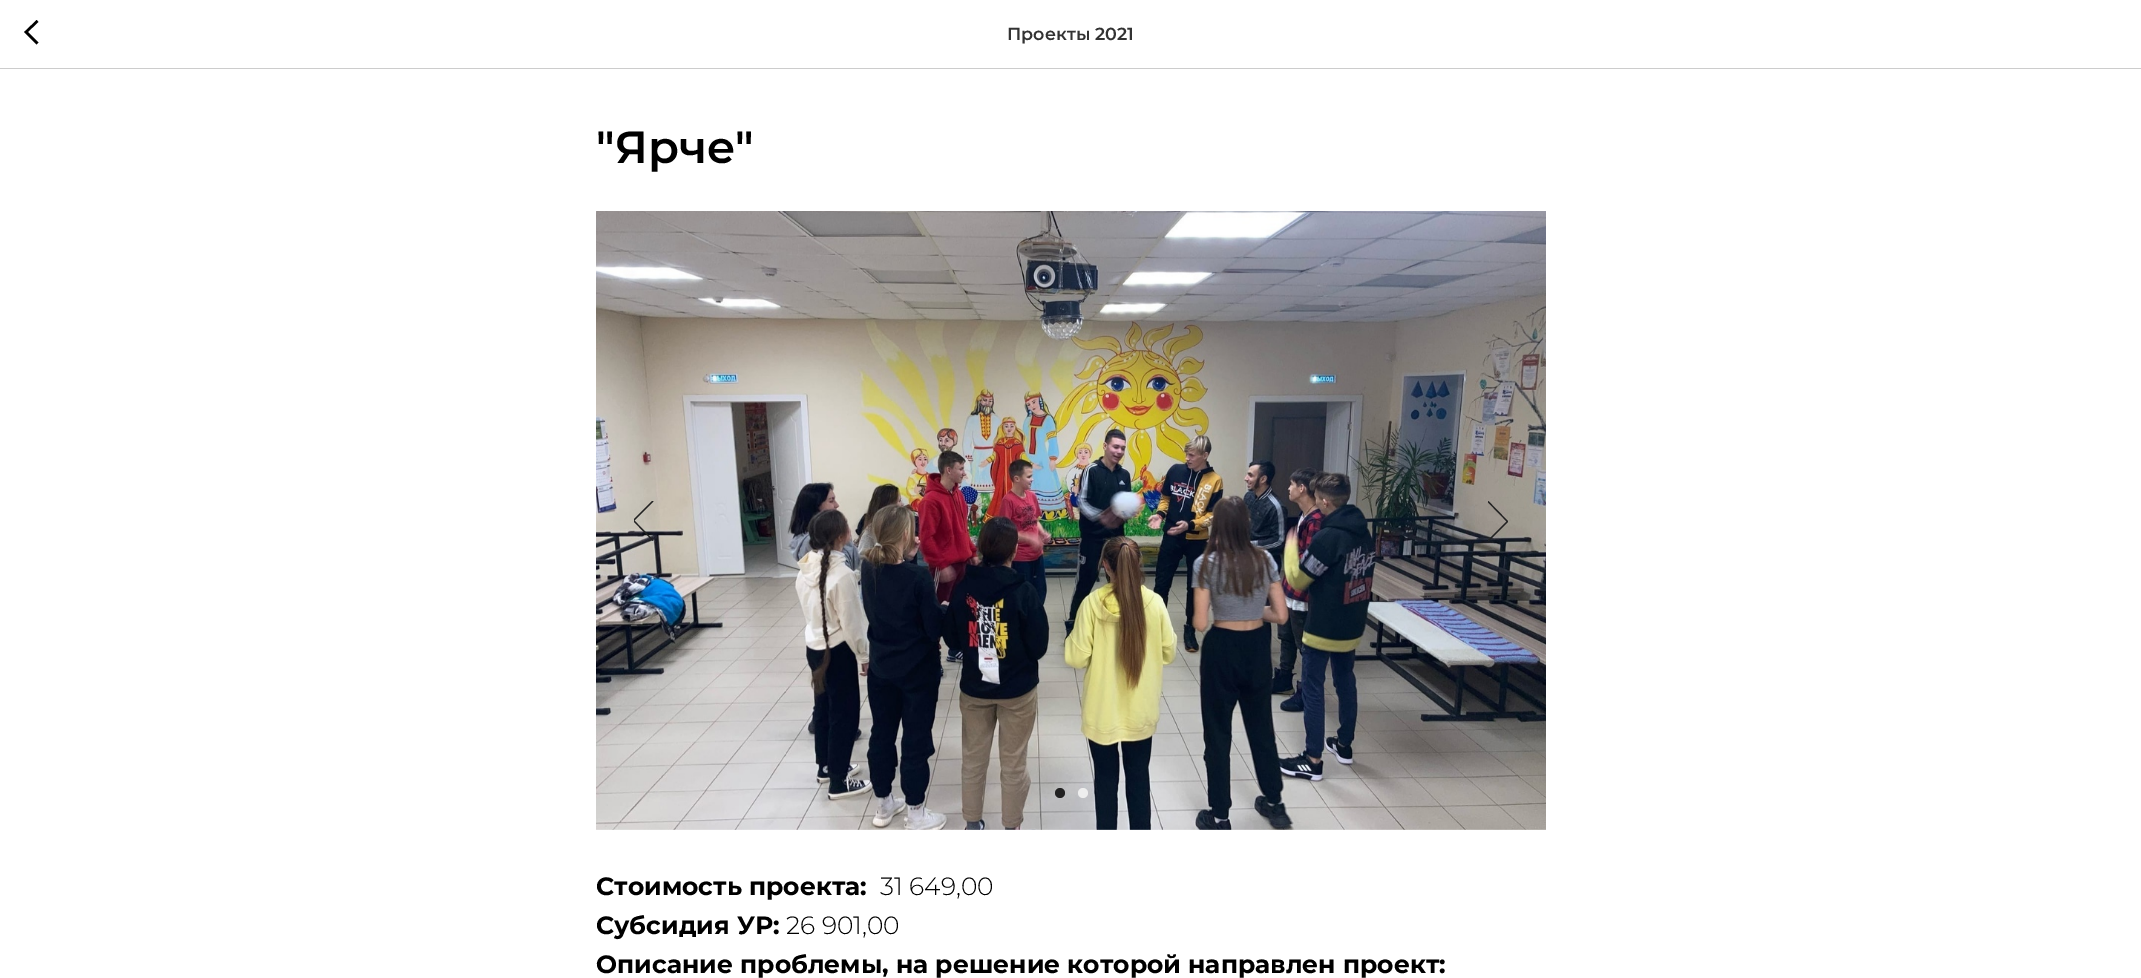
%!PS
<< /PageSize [2141 978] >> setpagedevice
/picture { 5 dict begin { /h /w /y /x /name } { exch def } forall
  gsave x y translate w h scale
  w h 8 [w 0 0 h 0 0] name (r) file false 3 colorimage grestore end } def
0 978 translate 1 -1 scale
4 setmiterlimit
1 setgray
0 0 2141 978 rectfill
0.8 setgray
0 68 2141 1 rectfill
0 setgray
2.5 setlinewidth
newpath 37.5 43.5 moveto 26 32 lineto 37.5 21 lineto stroke
/Montserrat-SemiBold [17.5 0 0 -17.5 0 0] selectfont
0.2 setgray
1007 40 moveto (Проекты 2021) show
/Montserrat-SemiBold [45 0 0 -45 0 0] selectfont
0 setgray
596 163 moveto ("Ярче") show
(img1.rgb) 596 211 950 619 picture
gsave
634 501 21 40 rectclip
0.133 setgray
1.2 setlinewidth
newpath 653 540.5 moveto 633.5 520.5 lineto 653 501 lineto stroke
grestore
gsave
1488 501 20 40 rectclip
0.133 setgray
1.2 setlinewidth
newpath 1488 501.5 moveto 1507.5 521.5 lineto 1488 541 lineto stroke
grestore
0.133 setgray
newpath 1060 793 5 0 360 arc closepath fill
0.933 setgray
newpath 1083 793 5 0 360 arc closepath fill
/Montserrat-Bold [25 0 0 -25 0 0] selectfont
0 setgray
596 895 moveto (Стоимость проекта:) show
/Montserrat-Light [25 0 0 -25 0 0] selectfont
880 895 moveto (31 649,00) show
/Montserrat-Bold [25 0 0 -25 0 0] selectfont
596 934 moveto (Субсидия УР:) show
/Montserrat-Light [25 0 0 -25 0 0] selectfont
786 934 moveto (26 901,00) show
/Montserrat-Bold [25 0 0 -25 0 0] selectfont
596 973 moveto (Описание проблемы, на решение которой направлен проект:) show
showpage
